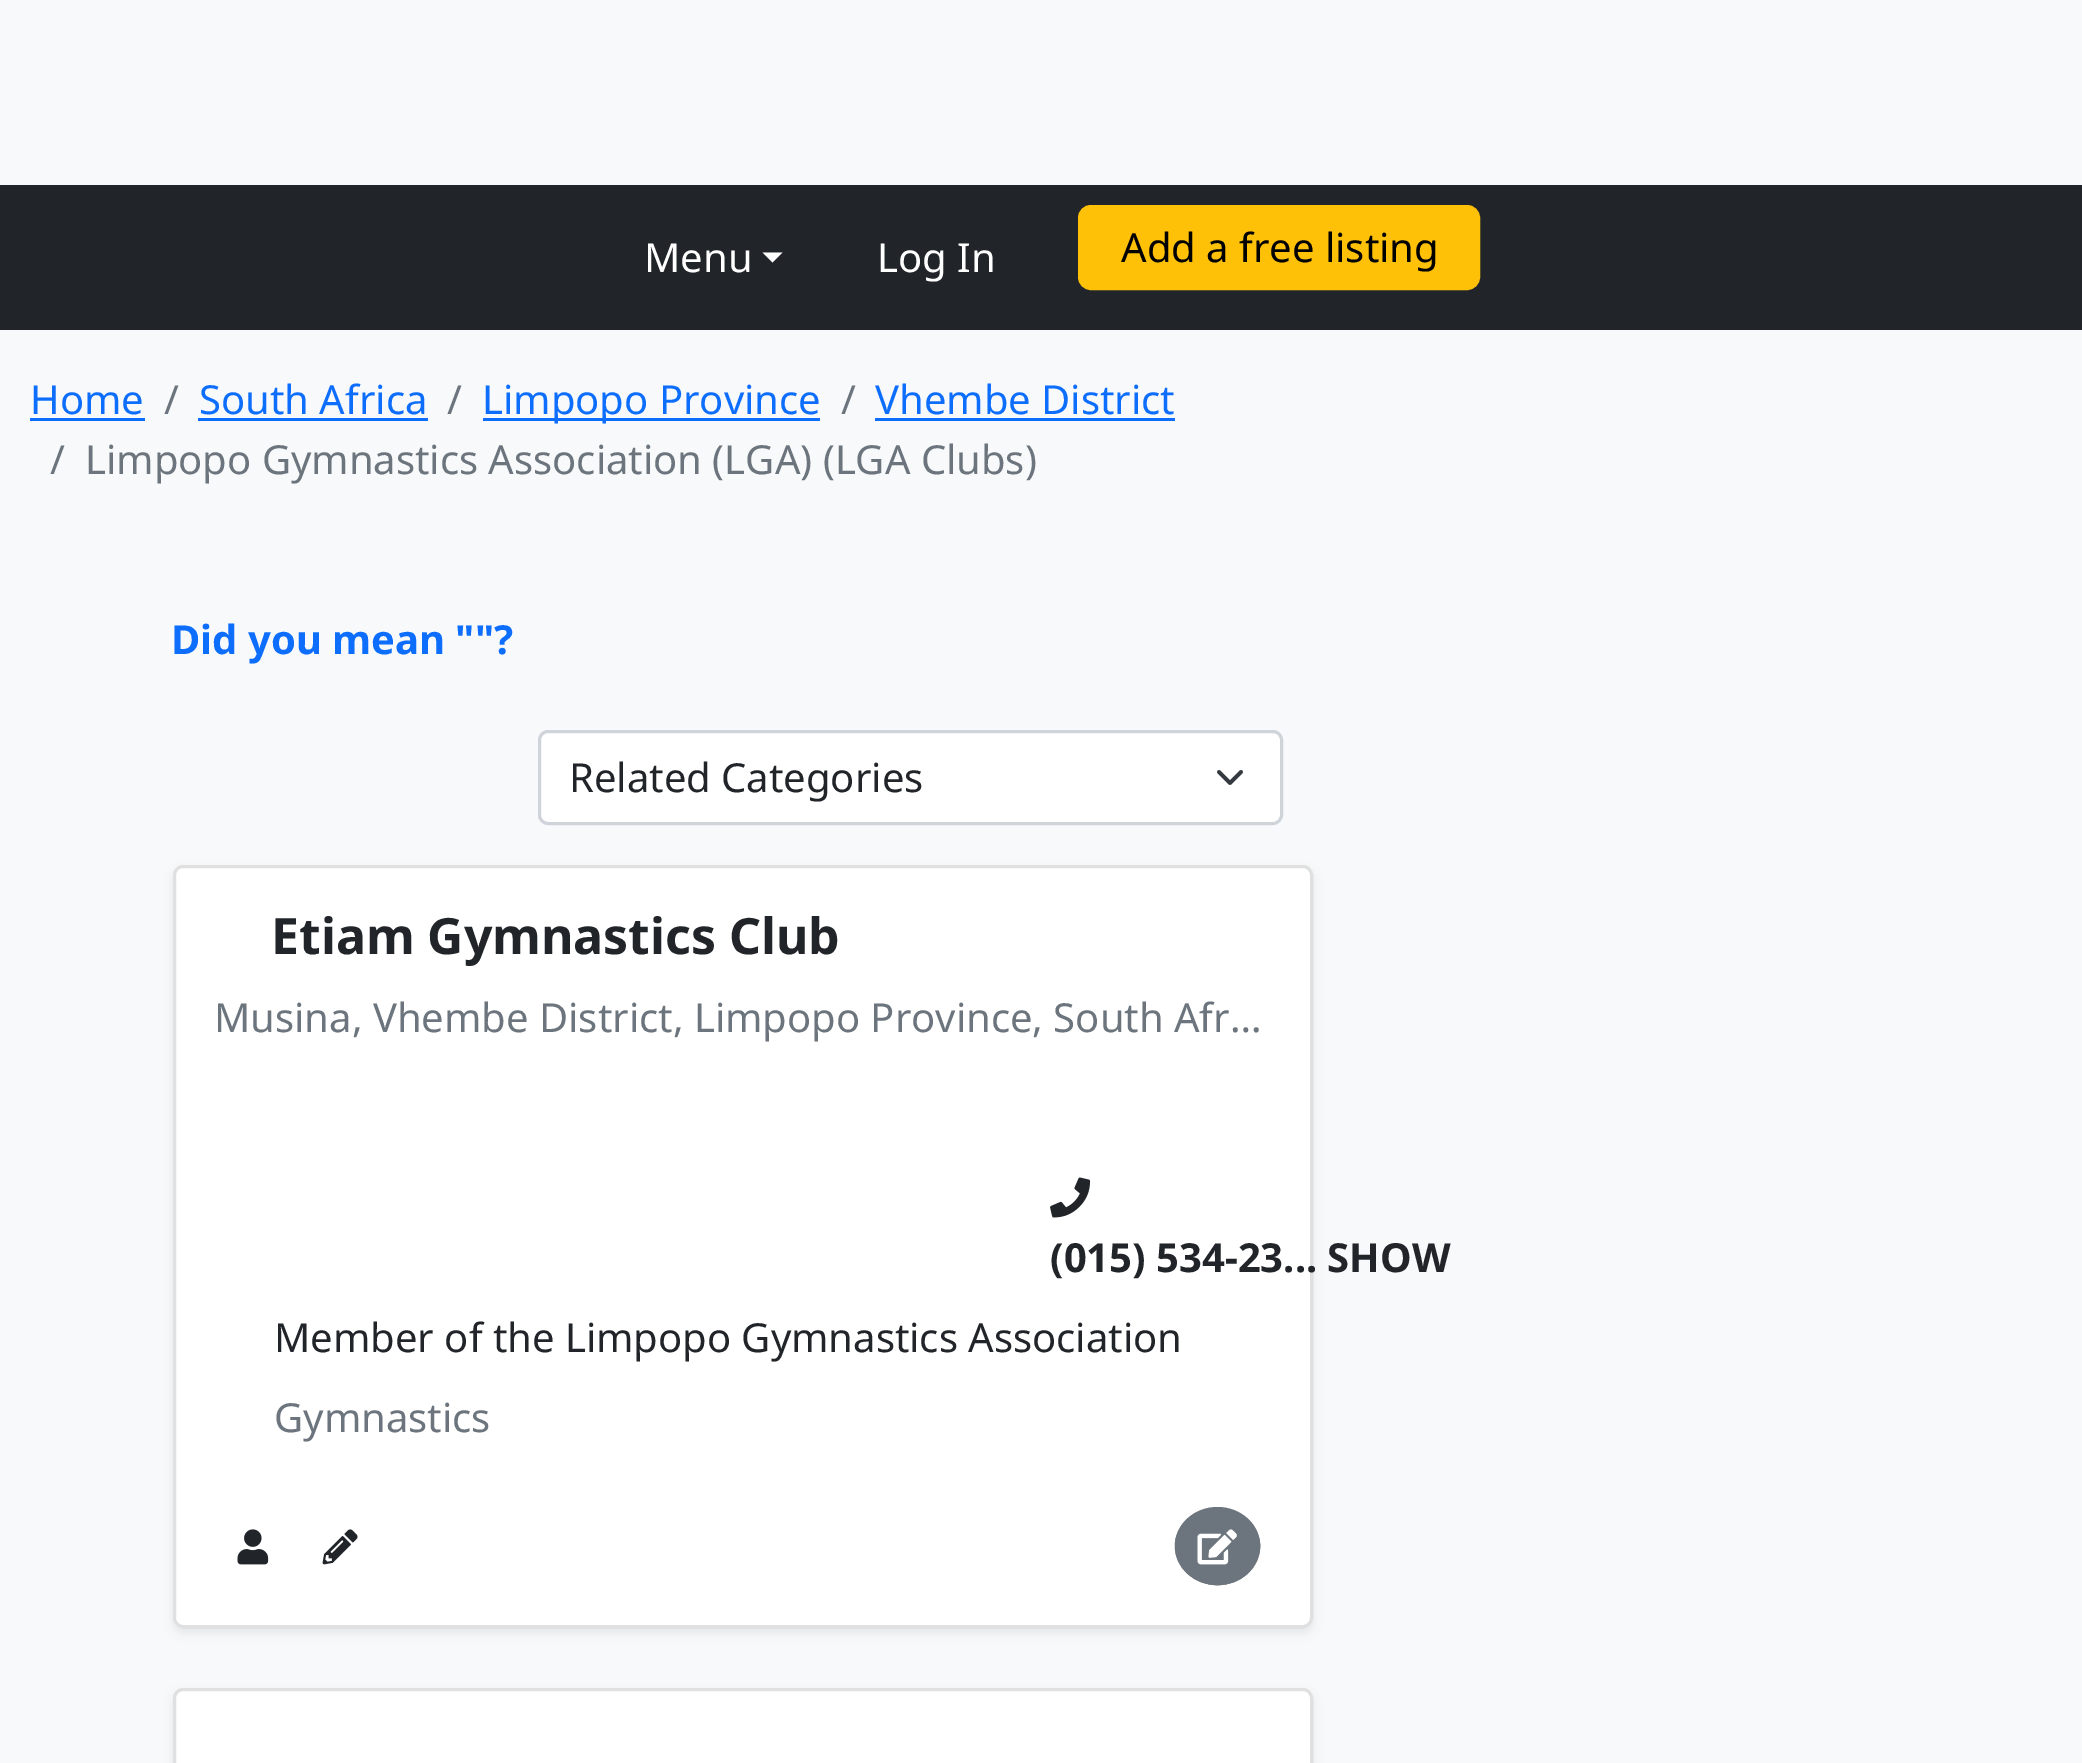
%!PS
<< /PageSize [2082 1763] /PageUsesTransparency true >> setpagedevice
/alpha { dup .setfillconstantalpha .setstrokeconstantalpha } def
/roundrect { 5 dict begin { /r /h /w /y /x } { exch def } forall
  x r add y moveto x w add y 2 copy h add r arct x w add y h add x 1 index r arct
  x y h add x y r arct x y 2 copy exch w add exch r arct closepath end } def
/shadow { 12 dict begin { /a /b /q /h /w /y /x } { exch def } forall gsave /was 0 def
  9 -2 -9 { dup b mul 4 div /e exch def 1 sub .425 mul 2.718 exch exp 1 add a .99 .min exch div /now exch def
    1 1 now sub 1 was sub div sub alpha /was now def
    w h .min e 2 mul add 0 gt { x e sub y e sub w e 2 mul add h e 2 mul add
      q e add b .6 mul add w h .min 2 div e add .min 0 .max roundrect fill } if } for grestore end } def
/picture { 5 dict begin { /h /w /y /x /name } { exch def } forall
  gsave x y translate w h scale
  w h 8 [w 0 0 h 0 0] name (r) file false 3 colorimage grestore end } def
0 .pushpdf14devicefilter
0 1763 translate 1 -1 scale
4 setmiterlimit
0.973 0.976 0.98 setrgbcolor
0 0 2082 1763 rectfill
0.129 0.145 0.161 setrgbcolor
0 185 2082 145 rectfill
/NotoSans-Regular [40 0 0 -40 0 0] selectfont
1 setgray
644 272 moveto (Menu) show
newpath 762.5 252.5 moveto 782.5 252.5 lineto 772.5 262.5 lineto closepath fill
877 272 moveto (Log In) show
1 0.757 0.027 setrgbcolor
1079.5 206.5 399 82 11.5 roundrect gsave fill grestore
3 setlinewidth
stroke
0 setgray
1121 262 moveto (Add a free listing) show
0.051 0.431 0.992 setrgbcolor
30 414 moveto (Home) show
30 418 115 3 rectfill
0.424 0.459 0.49 setrgbcolor
164 414 moveto (/) show
0.051 0.431 0.992 setrgbcolor
199 414 moveto (South Africa) show
198 418 230 3 rectfill
0.424 0.459 0.49 setrgbcolor
447 414 moveto (/) show
0.051 0.431 0.992 setrgbcolor
483 418 337 3 rectfill
482 414 moveto (Limpopo Province) show
0.424 0.459 0.49 setrgbcolor
841 414 moveto (/) show
0.051 0.431 0.992 setrgbcolor
875 414 moveto (Vhembe District) show
875 418 300 3 rectfill
0.424 0.459 0.49 setrgbcolor
50 474 moveto (/) show
85 474 moveto (Limpopo Gymnastics Association \(LGA\) \(LGA Clubs\)) show
/NotoSans-Bold [40 0 0 -40 0 0] selectfont
0.051 0.431 0.992 setrgbcolor
171 654 moveto (Did you mean ""?) show
1 setgray
538 730 745 95 10 roundrect fill
0.204 0.227 0.251 setrgbcolor
3.8 setlinewidth
1 setlinecap
1 setlinejoin
newpath 1219 772 moveto 1230 783 lineto 1241 772 lineto stroke
0.808 0.831 0.855 setrgbcolor
3 setlinewidth
0 setlinecap
0 setlinejoin
539.5 731.5 742 92 8.5 roundrect stroke
/NotoSans-Regular [40 0 0 -40 0 0] selectfont
0.129 0.145 0.161 setrgbcolor
569 792 moveto (Related Categories) show
0 setgray
173 870 1140 763 10 5 0.07 shadow
1 setgray
173 865 1140 763 10 roundrect fill
0.12 alpha
0 setgray
174.5 866.5 1137 760 8.5 roundrect stroke
/NotoSans-Bold [50 0 0 -50 0 0] selectfont
1 alpha
0.129 0.145 0.161 setrgbcolor
271 954 moveto (Etiam Gymnastics Club) show
/NotoSans-Regular [40 0 0 -40 0 0] selectfont
0.424 0.459 0.49 setrgbcolor
214 1032 moveto (Musina, Vhembe District, Limpopo Province, South Afr…) show
(img1.rgb) 1050 1177 41 41 picture
/NotoSans-Bold [40 0 0 -40 0 0] selectfont
0.129 0.145 0.161 setrgbcolor
1050 1272 moveto (\(015\) 534-23... SHOW) show
/NotoSans-Regular [40 0 0 -40 0 0] selectfont
274 1352 moveto (Member of the Limpopo Gymnastics Association) show
0.424 0.459 0.49 setrgbcolor
274 1432 moveto (Gymnastics) show
(img2.rgb) 237 1529 32 36 picture
(img3.rgb) 322 1529 36 36 picture
newpath 1217.5 1507 moveto 1241 1507 1260 1524.5 1260 1546 curveto 1260 1567.5 1241 1585 1217.5 1585 curveto 1194 1585 1175 1567.5 1175 1546 curveto 1175 1524.5 1194 1507 1217.5 1507 curveto closepath fill
2.5 setlinewidth
newpath 1217.5 1509 moveto 1240.5 1509 1259 1525.5 1259 1546 curveto 1259 1567 1240.5 1584 1217.5 1584 curveto 1194.5 1584 1176 1567 1176 1546 curveto 1176 1525.5 1194.5 1509 1217.5 1509 curveto closepath stroke
(img4.rgb) 1197 1529 40 36 picture
0 setgray
173 1693 1140 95 10 5 0.07 shadow
1 setgray
173 1688 1140 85 10 roundrect fill
0.12 alpha
0 setgray
3 setlinewidth
174.5 1689.5 1137 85 8.5 roundrect stroke
.poppdf14devicefilter showpage
